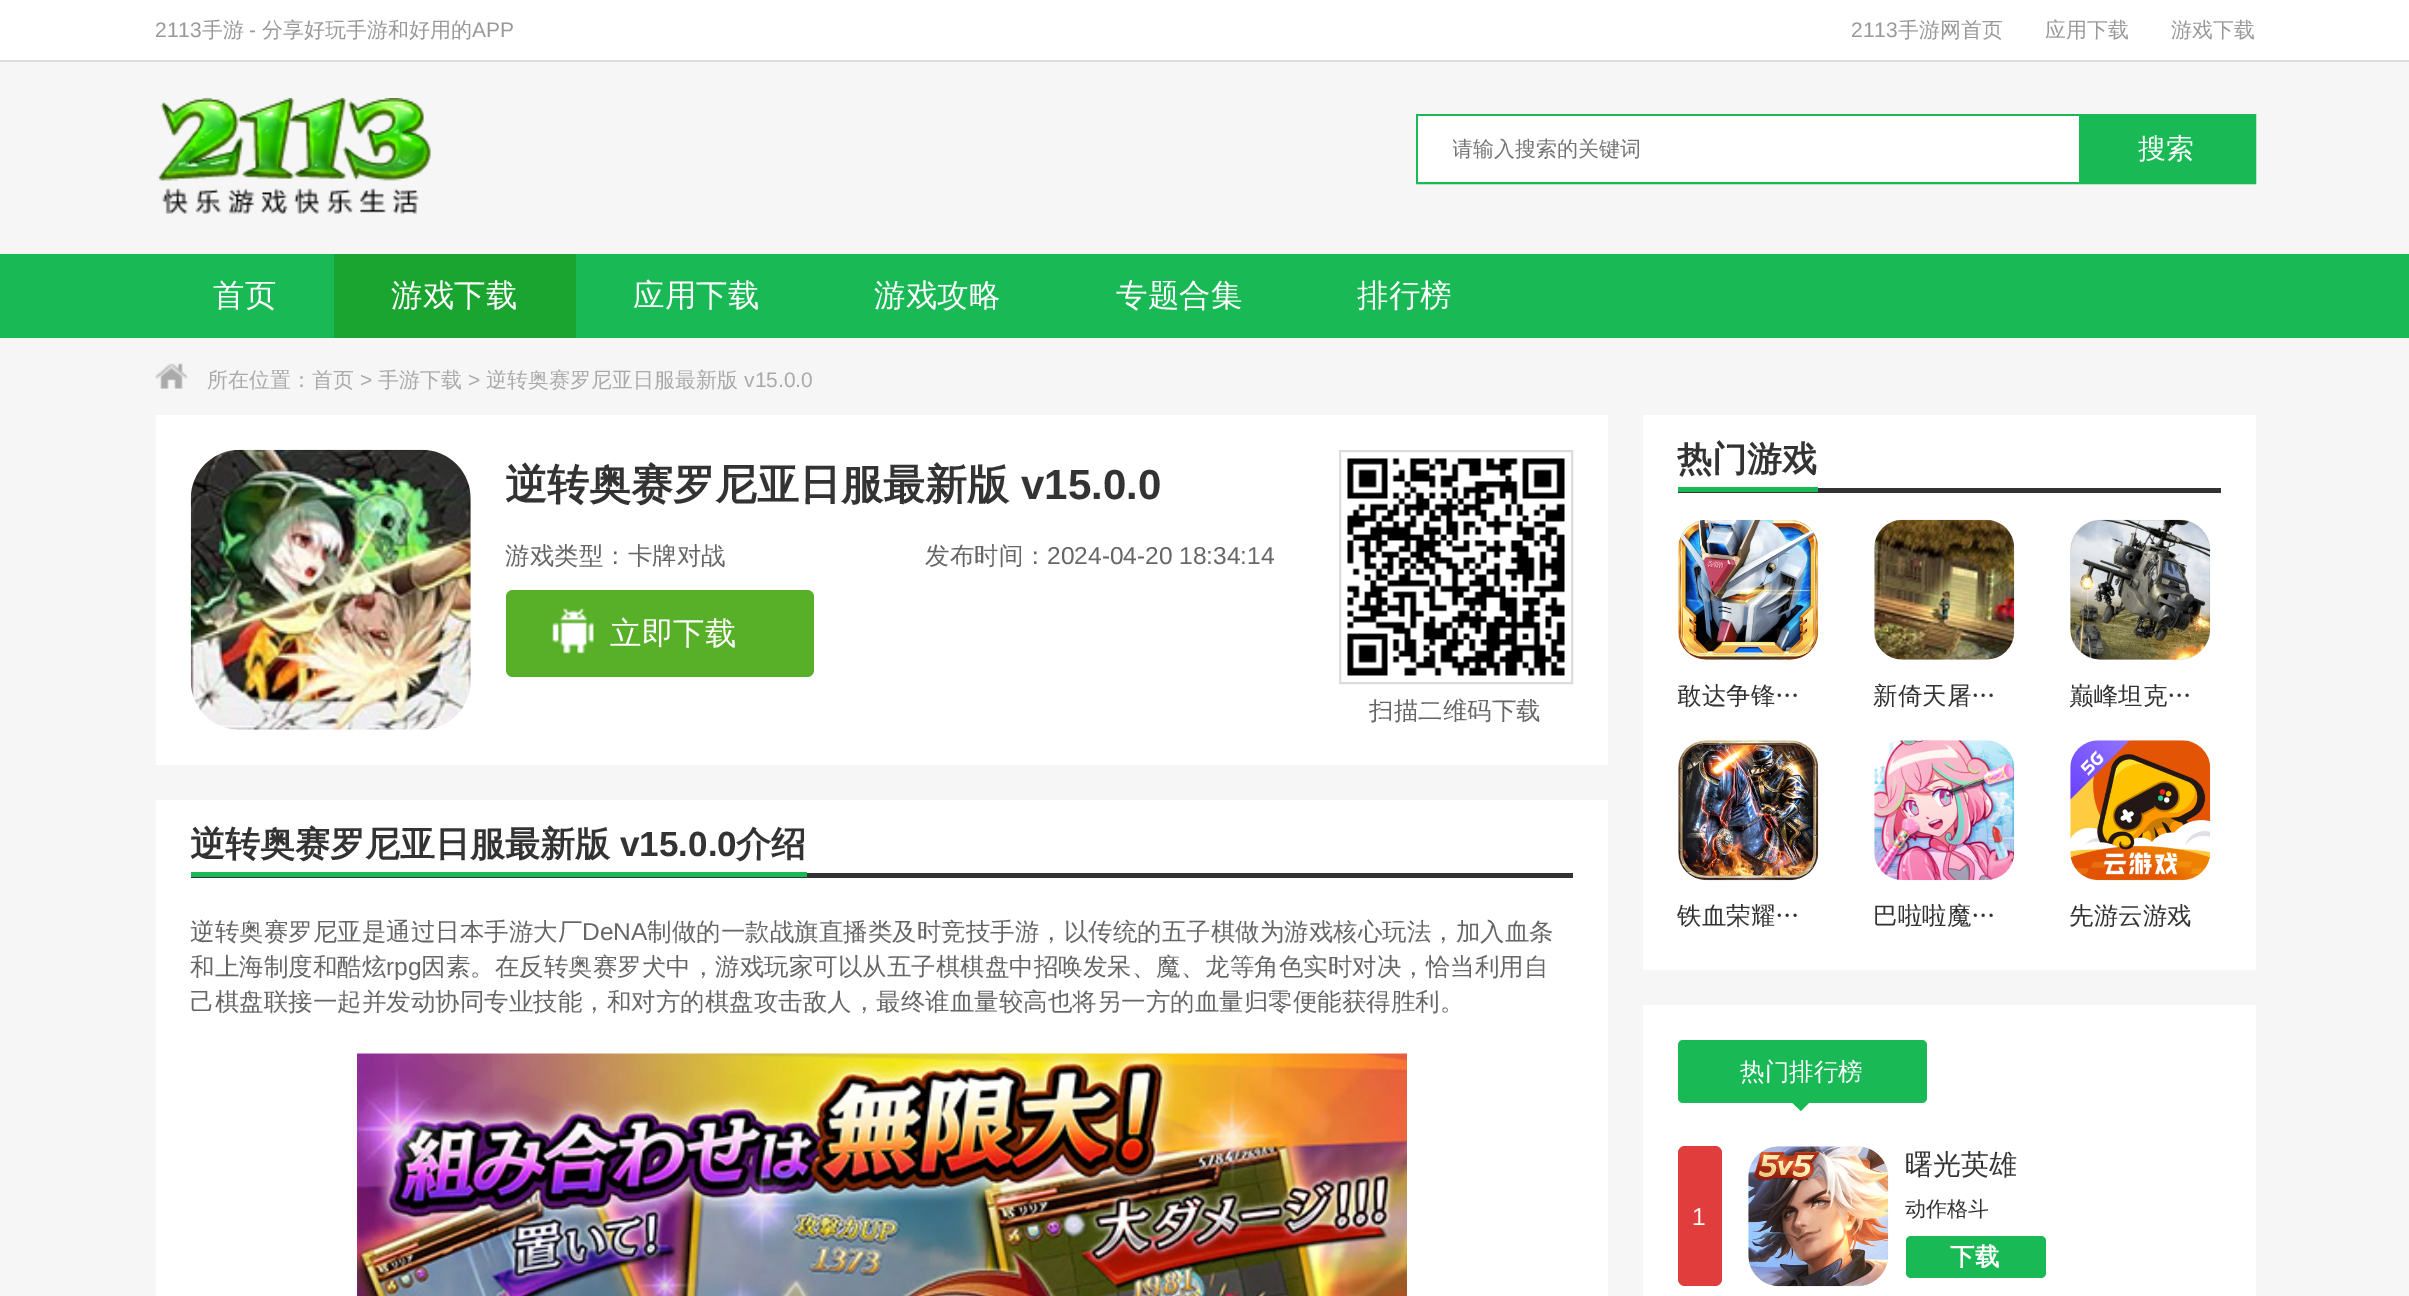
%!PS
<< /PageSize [2409 1296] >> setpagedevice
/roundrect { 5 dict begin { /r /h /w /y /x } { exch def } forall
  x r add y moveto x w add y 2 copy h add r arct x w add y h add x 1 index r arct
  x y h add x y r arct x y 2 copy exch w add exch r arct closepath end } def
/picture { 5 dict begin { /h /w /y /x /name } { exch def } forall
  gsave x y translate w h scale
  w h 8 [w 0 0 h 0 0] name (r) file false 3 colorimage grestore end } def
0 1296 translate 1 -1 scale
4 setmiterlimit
0.965 setgray
0 0 2409 1296 rectfill
1 setgray
0 0 2409 60 rectfill
0.859 setgray
0 60 2409 2 rectfill
/LiberationSans-Regular [21 0 0 -21 0 0] selectfont
0.6 setgray
155 37 moveto (2113) show
/WenQuanYiZenHei-Medium [21 0 0 -21 0 0] selectfont
202 37 moveto (手游) show
/LiberationSans-Regular [21 0 0 -21 0 0] selectfont
249 37 moveto (-) show
/WenQuanYiZenHei-Medium [21 0 0 -21 0 0] selectfont
262 37 moveto (分享好玩手游和好用的) show
/LiberationSans-Regular [21 0 0 -21 0 0] selectfont
472 37 moveto (APP) show
1851 37 moveto (2113) show
/WenQuanYiZenHei-Medium [21 0 0 -21 0 0] selectfont
1898 37 moveto (手游网首页) show
2045 37 moveto (应用下载) show
2171 37 moveto (游戏下载) show
(img1.rgb) 157 98 274 116 picture
0.098 0.725 0.333 setrgbcolor
2 setlinewidth
1417 115 838 68 rectstroke
1 setgray
1418 116 661 66 rectfill
gsave
1453 135 591 30 rectclip
0.459 setgray
1452 156 moveto (请输入搜索的关键词) show
grestore
0.098 0.725 0.333 setrgbcolor
2079 116 175 66 rectfill
/WenQuanYiZenHei-Medium [28 0 0 -28 0 0] selectfont
1 setgray
2138 158 moveto (搜索) show
0.098 0.725 0.333 setrgbcolor
0 254 2409 84 rectfill
/WenQuanYiZenHei-Medium [31.5 0 0 -31.5 0 0] selectfont
1 setgray
213 306 moveto (首页) show
0.098 0.647 0.184 setrgbcolor
334 254 242 84 rectfill
1 setgray
391 306 moveto (游戏下载) show
633 306 moveto (应用下载) show
874 306 moveto (游戏攻略) show
1116 306 moveto (专题合集) show
1357 306 moveto (排行榜) show
(img2.rgb) 155 363 33 26 picture
/WenQuanYiZenHei-Medium [21 0 0 -21 0 0] selectfont
0.667 setgray
207 387 moveto (所在位置：首页) show
/LiberationSans-Regular [21 0 0 -21 0 0] selectfont
360 387 moveto (>) show
/WenQuanYiZenHei-Medium [21 0 0 -21 0 0] selectfont
378 387 moveto (手游下载) show
/LiberationSans-Regular [21 0 0 -21 0 0] selectfont
468 387 moveto (>) show
/WenQuanYiZenHei-Medium [21 0 0 -21 0 0] selectfont
486 387 moveto (逆转奥赛罗尼亚日服最新版) show
/LiberationSans-Regular [21 0 0 -21 0 0] selectfont
744 387 moveto (v15.0.0) show
1 setgray
156 415 1452 350 rectfill
(img3.rgb) 190 449 281 281 picture
/WenQuanYiZenHei-Bold [42 0 0 -42 0 0] selectfont
0.2 setgray
505 499 moveto (逆转奥赛罗尼亚日服最新版) show
/LiberationSans-Bold [42 0 0 -42 0 0] selectfont
1021 499 moveto (v15.0.0) show
/WenQuanYiZenHei-Medium [24.5 0 0 -24.5 0 0] selectfont
0.4 setgray
505 564 moveto (游戏类型：卡牌对战) show
925 564 moveto (发布时间：) show
/LiberationSans-Regular [24.5 0 0 -24.5 0 0] selectfont
1047 564 moveto (2024-04-20 18:34:14) show
0.345 0.69 0.161 setrgbcolor
506 590 308 87 7 roundrect fill
(img4.rgb) 552 608 42 46 picture
/WenQuanYiZenHei-Medium [31.5 0 0 -31.5 0 0] selectfont
1 setgray
610 644 moveto (立即下载) show
0.863 setgray
1340 451 232 232 rectstroke
(img5.rgb) 1347 458 218 218 picture
/WenQuanYiZenHei-Medium [24.5 0 0 -24.5 0 0] selectfont
0.4 setgray
1369 719 moveto (扫描二维码下载) show
1 setgray
156 800 1452 496 rectfill
0.2 setgray
191 873 1382 5 rectfill
/WenQuanYiZenHei-Bold [35 0 0 -35 0 0] selectfont
190 856 moveto (逆转奥赛罗尼亚日服最新版) show
/LiberationSans-Bold [35 0 0 -35 0 0] selectfont
620 856 moveto (v15.0.0) show
/WenQuanYiZenHei-Bold [35 0 0 -35 0 0] selectfont
736 856 moveto (介绍) show
0.098 0.725 0.333 setrgbcolor
191 872 616 5 rectfill
/WenQuanYiZenHei-Medium [24.5 0 0 -24.5 0 0] selectfont
0.4 setgray
190 940 moveto (逆转奥赛罗尼亚是通过日本手游大厂) show
/LiberationSans-Regular [24.5 0 0 -24.5 0 0] selectfont
582 940 moveto (DeNA) show
/WenQuanYiZenHei-Medium [24.5 0 0 -24.5 0 0] selectfont
647 940 moveto (制做的一款战旗直播类及时竞技手游，以传统的五子棋做为游戏核心玩法，加入血条) show
190 975 moveto (和上海制度和酷炫) show
/LiberationSans-Regular [24.5 0 0 -24.5 0 0] selectfont
386 975 moveto (rpg) show
/WenQuanYiZenHei-Medium [24.5 0 0 -24.5 0 0] selectfont
421 975 moveto (因素。在反转奥赛罗犬中，游戏玩家可以从五子棋棋盘中招唤发呆、魔、龙等角色实时对决，恰当利用自) show
190 1010 moveto (己棋盘联接一起并发动协同专业技能，和对方的棋盘攻击敌人，最终谁血量较高也将另一方的血量归零便能获得胜利。) show
(img6.rgb) 357 1053 1050 243 picture
1 setgray
1643 415 613 555 rectfill
0.2 setgray
1678 488 543 5 rectfill
/WenQuanYiZenHei-Bold [35 0 0 -35 0 0] selectfont
1677 471 moveto (热门游戏) show
0.098 0.725 0.333 setrgbcolor
1678 487 140 5 rectfill
(img7.rgb) 1678 519 141 141 picture
gsave
1678 677 140 37 rectclip
/WenQuanYiZenHei-Medium [24.5 0 0 -24.5 0 0] selectfont
0.2 setgray
1677 704 moveto (敢达争锋…) show
grestore
(img8.rgb) 1874 519 141 141 picture
/WenQuanYiZenHei-Medium [24.5 0 0 -24.5 0 0] selectfont
0.2 setgray
1873 704 moveto (新倚天屠…) show
(img9.rgb) 2070 519 141 141 picture
2069 704 moveto (巅峰坦克…) show
(img10.rgb) 1678 740 141 141 picture
1677 924 moveto (铁血荣耀…) show
(img11.rgb) 1874 740 141 141 picture
1873 924 moveto (巴啦啦魔…) show
(img12.rgb) 2070 740 141 141 picture
2069 924 moveto (先游云游戏) show
1 setgray
1643 1005 613 291 rectfill
0.098 0.725 0.333 setrgbcolor
1678 1040 249 63 5 roundrect fill
1 setgray
1740 1080 moveto (热门排行榜) show
0.098 0.725 0.333 setrgbcolor
newpath 1792 1102.5 moveto 1809.5 1102.5 lineto 1801 1111 lineto closepath fill
0.882 0.239 0.239 setrgbcolor
1678 1146 44 140 7 roundrect fill
/LiberationSans-Regular [24.5 0 0 -24.5 0 0] selectfont
1 setgray
1692 1225 moveto (1) show
(img13.rgb) 1748 1146 141 141 picture
/WenQuanYiZenHei-Medium [28 0 0 -28 0 0] selectfont
0.2 setgray
1905 1174 moveto (曙光英雄) show
/WenQuanYiZenHei-Medium [21 0 0 -21 0 0] selectfont
1905 1216 moveto (动作格斗) show
0.098 0.725 0.333 setrgbcolor
1906 1236 140 42 5 roundrect fill
/WenQuanYiZenHei-Bold [24.5 0 0 -24.5 0 0] selectfont
1 setgray
1950 1265 moveto (下载) show
showpage
